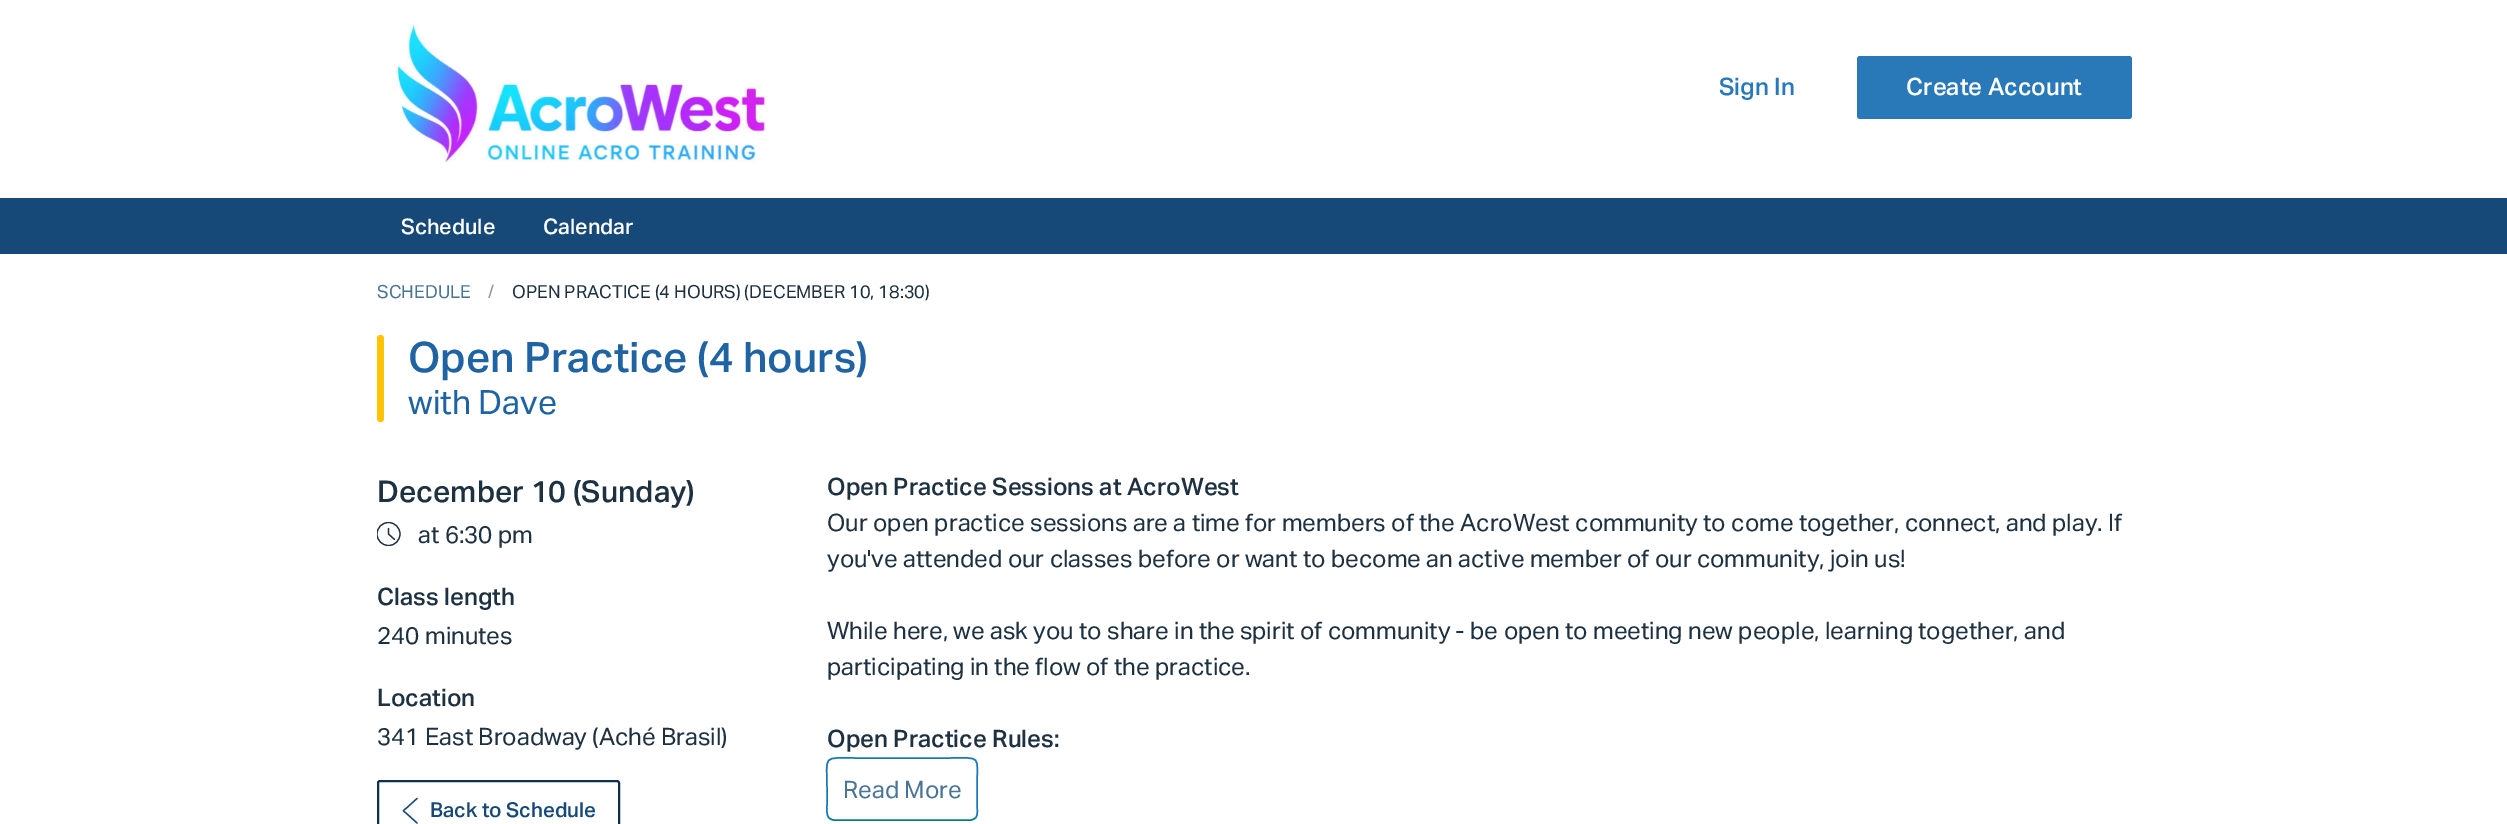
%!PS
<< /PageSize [2507 824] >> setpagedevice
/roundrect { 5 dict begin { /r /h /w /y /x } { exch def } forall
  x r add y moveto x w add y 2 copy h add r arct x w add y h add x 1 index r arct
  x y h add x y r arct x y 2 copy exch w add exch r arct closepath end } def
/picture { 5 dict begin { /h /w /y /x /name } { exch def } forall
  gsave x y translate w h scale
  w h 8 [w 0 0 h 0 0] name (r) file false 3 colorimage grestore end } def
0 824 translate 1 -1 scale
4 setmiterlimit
1 setgray
0 0 2507 824 rectfill
(img1.rgb) 394 24 373 138 picture
/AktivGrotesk-Medium [24 0 0 -24 0 0] selectfont
0.161 0.475 0.722 setrgbcolor
1719 95 moveto (Sign In) show
1857 56 275 63 3 roundrect fill
1 setgray
1906 95 moveto (Create Account) show
0.09 0.286 0.471 setrgbcolor
0 198 2507 56 rectfill
/AktivGrotesk-Medium [21.5 0 0 -21.5 0 0] selectfont
1 setgray
401 234 moveto (Schedule) show
543 234 moveto (Calendar) show
/AktivGrotesk-Regular [18 0 0 -18 0 0] selectfont
0.286 0.455 0.592 setrgbcolor
377 298 moveto (SCHEDULE) show
0.584 0.592 0.608 setrgbcolor
488 298 moveto (/) show
0.118 0.192 0.255 setrgbcolor
512 298 moveto (OPEN PRACTICE \(4 HOURS\) \(DECEMBER 10, 18:30\)) show
1 0.765 0 setrgbcolor
377 335 7 87 3.5 roundrect fill
/AktivGrotesk-Medium [42 0 0 -42 0 0] selectfont
0.122 0.388 0.639 setrgbcolor
408 372 moveto (Open Practice \(4 hours\)) show
/AktivGrotesk-Regular [33.5 0 0 -33.5 0 0] selectfont
408 414 moveto (with Dave) show
/AktivGrotesk-Medium [30 0 0 -30 0 0] selectfont
0.118 0.192 0.255 setrgbcolor
377 502 moveto (December 10 \(Sunday\)) show
gsave
377 522 24 24 rectclip
1.2 setlinewidth
newpath 388.5 534 11.5 0 360 arc closepath stroke
grestore
1.2 setlinewidth
1 setlinecap
1 setlinejoin
newpath 388.5 528.5 moveto 388.5 534 lineto 394.5 539.5 lineto stroke
/AktivGrotesk-Regular [24 0 0 -24 0 0] selectfont
418 543 moveto (at 6:30 pm) show
/AktivGrotesk-Medium [24 0 0 -24 0 0] selectfont
377 605 moveto (Class length) show
/AktivGrotesk-Regular [24 0 0 -24 0 0] selectfont
377 644 moveto (240 minutes) show
/AktivGrotesk-Medium [24 0 0 -24 0 0] selectfont
377 706 moveto (Location) show
/AktivGrotesk-Regular [24 0 0 -24 0 0] selectfont
377 745 moveto (341 East Broadway \(Aché Brasil\)) show
0.059 0.184 0.302 setrgbcolor
2 setlinewidth
0 setlinecap
0 setlinejoin
378 781 241 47 2 roundrect stroke
0.09 0.286 0.471 setrgbcolor
1.3 setlinewidth
1 setlinecap
1 setlinejoin
newpath 417 798.5 moveto 406 808.5 lineto 402.5 811 402.5 810.5 406 813 curveto 417 823 lineto stroke
/AktivGrotesk-Medium [20.5 0 0 -20.5 0 0] selectfont
430 817 moveto (Back to Schedule) show
/AktivGrotesk-Medium [24 0 0 -24 0 0] selectfont
0.118 0.192 0.255 setrgbcolor
827 495 moveto (Open Practice Sessions at AcroWest) show
/AktivGrotesk-Regular [24 0 0 -24 0 0] selectfont
827 531 moveto (Our open practice sessions are a time for members of the AcroWest community to come together, connect, and play. If) show
827 567 moveto (you've attended our classes before or want to become an active member of our community, join us!) show
827 639 moveto (While here, we ask you to share in the spirit of community - be open to meeting new people, learning together, and) show
827 675 moveto (participating in the flow of the practice.) show
/AktivGrotesk-Medium [24 0 0 -24 0 0] selectfont
827 747 moveto (Open Practice Rules:) show
0.024 0.494 0.506 setrgbcolor
1.5 setlinewidth
0 setlinecap
0 setlinejoin
newpath 975.5 818 moveto 974 819 972.5 820 970.5 820 curveto 834 820 lineto 832 820 830.5 819 829 818 curveto stroke
0.09 0.475 0.729 setrgbcolor
newpath 829 818 moveto 826 814.5 827 808.5 827 805 curveto 827 789 lineto 827 754 821.5 758 857 758 curveto 948 758 lineto 983 758 977 754 977 789 curveto 977 805 lineto 977 808.5 978.5 814.5 975.5 818 curveto stroke
/AktivGrotesk-Regular [24 0 0 -24 0 0] selectfont
0.286 0.455 0.592 setrgbcolor
843 798 moveto (Read More) show
showpage
